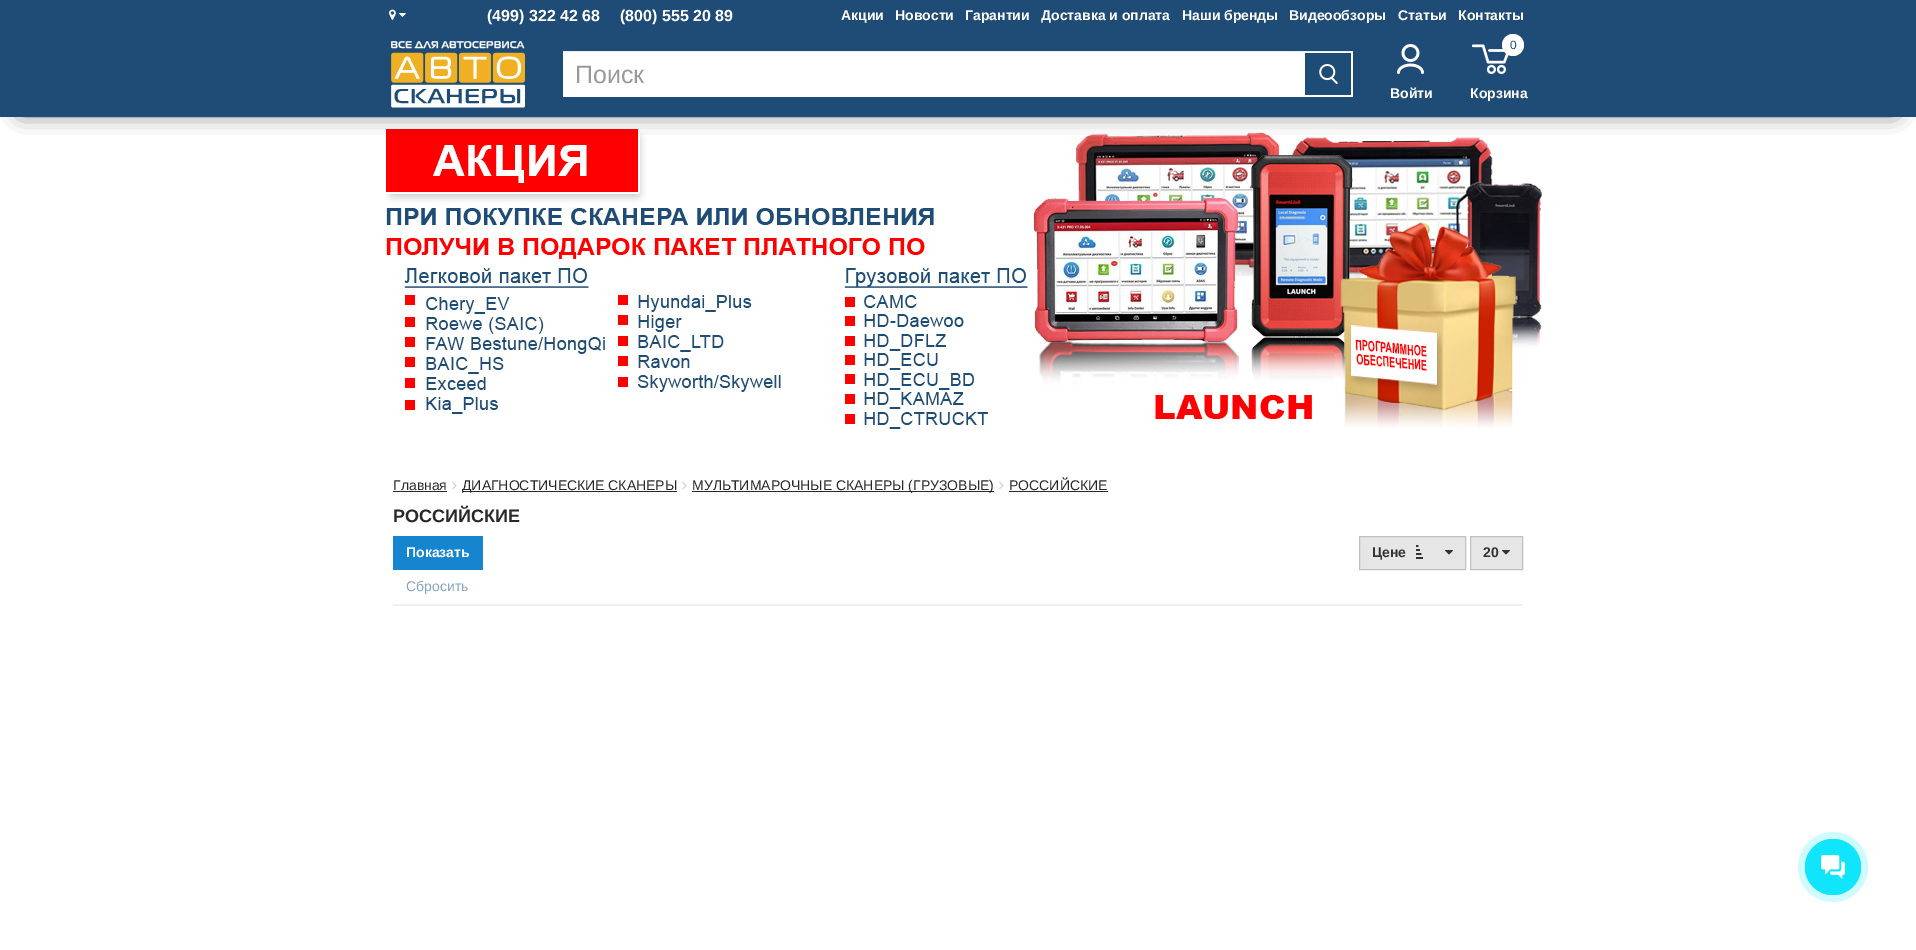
%!PS
<< /PageSize [1916 950] /PageUsesTransparency true >> setpagedevice
/alpha { dup .setfillconstantalpha .setstrokeconstantalpha } def
/roundrect { 5 dict begin { /r /h /w /y /x } { exch def } forall
  x r add y moveto x w add y 2 copy h add r arct x w add y h add x 1 index r arct
  x y h add x y r arct x y 2 copy exch w add exch r arct closepath end } def
/shadow { 12 dict begin { /a /b /q /h /w /y /x } { exch def } forall gsave /was 0 def
  9 -2 -9 { dup b mul 4 div /e exch def 1 sub .425 mul 2.718 exch exp 1 add a .99 .min exch div /now exch def
    1 1 now sub 1 was sub div sub alpha /was now def
    w h .min e 2 mul add 0 gt { x e sub y e sub w e 2 mul add h e 2 mul add
      q e add b .6 mul add w h .min 2 div e add .min 0 .max roundrect fill } if } for grestore end } def
/picture { 5 dict begin { /h /w /y /x /name } { exch def } forall
  gsave x y translate w h scale
  w h 8 [w 0 0 h 0 0] name (r) file false 3 colorimage grestore end } def
0 .pushpdf14devicefilter
0 950 translate 1 -1 scale
4 setmiterlimit
1 setgray
0 0 1916 950 rectfill
0.122 0.298 0.463 setrgbcolor
0 0 1916 31 rectfill
(img1.rgb) 389 9 7 11 picture
(img2.rgb) 399 13 7 4 picture
/LiberationSans-Bold [16 0 0 -16 0 0] selectfont
1 setgray
487 21 moveto (\(499\) 322 42 68) show
620 21 moveto (\(800\) 555 20 89) show
/LiberationSans-Bold [14 0 0 -14 0 0] selectfont
841 20 moveto (Акции) show
895 20 moveto (Новости) show
965 20 moveto (Гарантии) show
1041 20 moveto (Доставка и оплата) show
1182 20 moveto (Наши бренды) show
1289 20 moveto (Видеообзоры) show
1398 20 moveto (Статьи) show
1458 20 moveto (Контакты) show
(img7.rgb) 385 129 1158 301 picture
0 setgray
22 68 1872 42 0 11 1 shadow
0.122 0.298 0.463 setrgbcolor
0 31 1916 86 rectfill
(img3.rgb) 391 41 135 67 picture
1 setgray
563 52 790 45 rectfill
0.925 setgray
563 51 790 1 rectfill
/LiberationSans-Regular [25 0 0 -25 0 0] selectfont
0.6 setgray
575 83 moveto (Поиск) show
0.114 0.302 0.463 setrgbcolor
1305 53 46 42 rectfill
(img4.rgb) 1319 64 19 20 picture
(img5.rgb) 1471 44 38 30 picture
1 setgray
newpath 1513 45 11 0 360 arc closepath fill
/LiberationSans-Regular [12 0 0 -12 0 0] selectfont
0.114 0.302 0.463 setrgbcolor
1510 49 moveto (0) show
/LiberationSans-Bold [14 0 0 -14 0 0] selectfont
1 setgray
1470 98 moveto (Корзина) show
(img6.rgb) 1397 44 27 30 picture
1390 98 moveto (Войти) show
/LiberationSans-Regular [14 0 0 -14 0 0] selectfont
0.161 0.153 0.153 setrgbcolor
393 490 moveto (Главная) show
393 491 54 1 rectfill
(img8.rgb) 452 481 5 9 picture
462 491 215 1 rectfill
462 490 moveto (ДИАГНОСТИЧЕСКИЕ СКАНЕРЫ) show
(img8.rgb) 682 481 5 9 picture
692 491 302 1 rectfill
692 490 moveto (МУЛЬТИМАРОЧНЫЕ СКАНЕРЫ \(ГРУЗОВЫЕ\)) show
(img8.rgb) 999 481 5 9 picture
1009 490 moveto (РОССИЙСКИЕ) show
1009 491 99 1 rectfill
/LiberationSans-Bold [18 0 0 -18 0 0] selectfont
393 522 moveto (РОССИЙСКИЕ) show
0.078 0.522 0.808 setrgbcolor
393 536 90 34 rectfill
/LiberationSans-Bold [14 0 0 -14 0 0] selectfont
1 setgray
406 557 moveto (Показать) show
/LiberationSans-Regular [14 0 0 -14 0 0] selectfont
0.529 0.643 0.761 setrgbcolor
406 591 moveto (Сбросить) show
0.902 setgray
newpath 1359.5 536.5 moveto 1465.5 536.5 lineto 1465.5 569.5 lineto 1359.5 569.5 lineto closepath gsave fill grestore
0.753 setgray
stroke
/LiberationSans-Bold [14 0 0 -14 0 0] selectfont
0.2 setgray
1372 557 moveto (Цене) show
(img9.rgb) 1416 545 7 14 picture
(img10.rgb) 1445 550 8 5 picture
0.902 setgray
newpath 1470.5 536.5 moveto 1522.5 536.5 lineto 1522.5 569.5 lineto 1470.5 569.5 lineto closepath gsave fill grestore
0.753 setgray
stroke
0.2 setgray
1483 557 moveto (20) show
(img10.rgb) 1502 550 8 5 picture
0.937 0.941 0.945 setrgbcolor
393 604 1130 2 rectfill
0.812 0.98 0.996 setrgbcolor
newpath 1833 867 35 0 360 arc closepath fill
0.063 0.898 0.988 setrgbcolor
0.8 setlinewidth
newpath 1833 867 27.6 0 360 arc closepath stroke
newpath 1833 867 28 0 360 arc closepath fill
(img11.rgb) 1821 855 24 24 picture
.poppdf14devicefilter showpage
